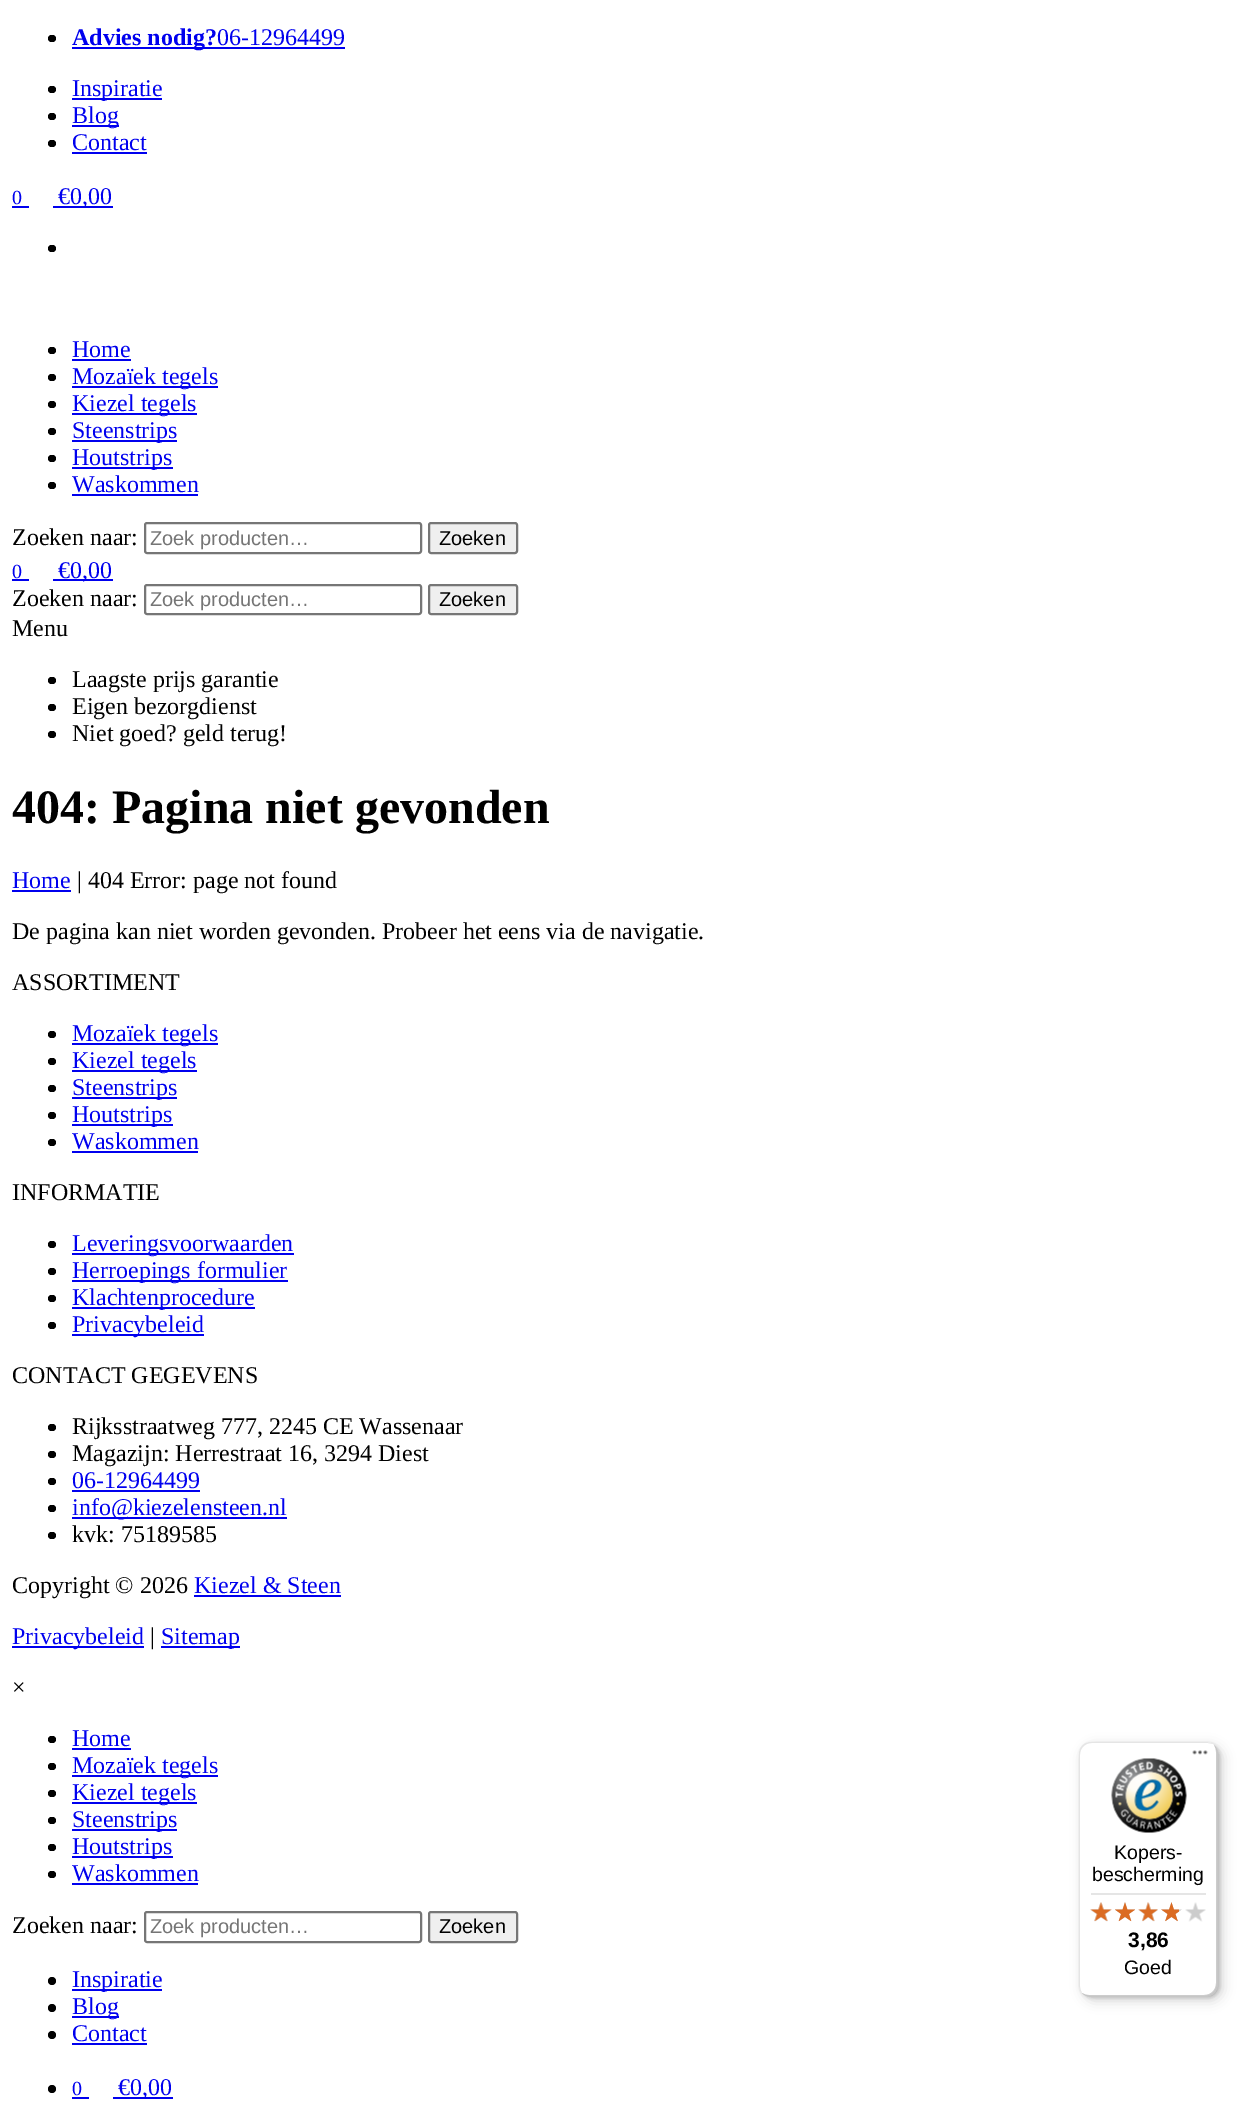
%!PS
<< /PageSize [1247 2114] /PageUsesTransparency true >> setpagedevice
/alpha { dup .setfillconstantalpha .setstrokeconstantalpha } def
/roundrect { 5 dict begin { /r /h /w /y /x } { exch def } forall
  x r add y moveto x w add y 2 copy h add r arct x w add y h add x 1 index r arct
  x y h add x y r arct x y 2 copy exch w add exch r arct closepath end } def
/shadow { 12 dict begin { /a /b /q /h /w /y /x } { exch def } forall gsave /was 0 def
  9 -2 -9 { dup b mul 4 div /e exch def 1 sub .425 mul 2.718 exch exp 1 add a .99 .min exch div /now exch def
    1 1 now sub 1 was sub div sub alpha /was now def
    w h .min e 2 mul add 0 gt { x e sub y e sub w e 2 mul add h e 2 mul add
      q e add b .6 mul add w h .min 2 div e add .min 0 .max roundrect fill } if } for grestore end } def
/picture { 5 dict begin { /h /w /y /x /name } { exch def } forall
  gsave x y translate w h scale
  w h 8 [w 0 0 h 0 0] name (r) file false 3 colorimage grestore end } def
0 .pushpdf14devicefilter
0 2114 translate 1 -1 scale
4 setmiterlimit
1 setgray
0 0 1247 2114 rectfill
0 setgray
48 35 8 7 3.5 roundrect fill
0 0 0.933 setrgbcolor
72 47 273 2 rectfill
/LiberationSerif-Bold [24 0 0 -24 0 0] selectfont
72 45 moveto (Advies nodig?) show
/LiberationSerif-Regular [24 0 0 -24 0 0] selectfont
217 45 moveto (06-12964499) show
0 setgray
48 86 8 7 3.5 roundrect fill
0 0 0.933 setrgbcolor
72 98 90 2 rectfill
72 96 moveto (Inspiratie) show
0 setgray
48 113 8 7 3.5 roundrect fill
0 0 0.933 setrgbcolor
72 125 47 2 rectfill
72 123 moveto (Blog) show
0 setgray
48 140 8 7 3.5 roundrect fill
0 0 0.933 setrgbcolor
72 150 moveto (Contact) show
72 152 75 2 rectfill
/LiberationSerif-Regular [20 0 0 -20 0 0] selectfont
12 204 moveto (0) show
12 206 17 2 rectfill
53 206 60 2 rectfill
/LiberationSerif-Regular [24 0 0 -24 0 0] selectfont
58 204 moveto (€0,00) show
0 setgray
48 245 8 7 3.5 roundrect fill
48 347 8 7 3.5 roundrect fill
0 0 0.933 setrgbcolor
72 357 moveto (Home) show
72 359 59 2 rectfill
0 setgray
48 374 8 7 3.5 roundrect fill
0 0 0.933 setrgbcolor
72 386 146 2 rectfill
72 384 moveto (Mozaïek tegels) show
0 setgray
48 401 8 7 3.5 roundrect fill
0 0 0.933 setrgbcolor
72 413 125 2 rectfill
72 411 moveto (Kiezel tegels) show
0 setgray
48 428 8 7 3.5 roundrect fill
0 0 0.933 setrgbcolor
72 440 105 2 rectfill
72 438 moveto (Steenstrips) show
0 setgray
48 455 8 7 3.5 roundrect fill
0 0 0.933 setrgbcolor
72 467 101 2 rectfill
72 465 moveto (Houtstrips) show
0 setgray
48 482 8 7 3.5 roundrect fill
0 0 0.933 setrgbcolor
72 492 moveto (Waskommen) show
72 494 126 2 rectfill
0 setgray
12 545 moveto (Zoeken naar:) show
0.463 setgray
2 setlinewidth
145 523 276 30 2 roundrect stroke
/LiberationSans-Regular [20 0 0 -20 0 0] selectfont
0.459 setgray
150 545 moveto (Zoek producten…) show
0.937 setgray
429 523 88 30 2 roundrect gsave fill grestore
0.463 setgray
stroke
0 setgray
439 545 moveto (Zoeken) show
/LiberationSerif-Regular [20 0 0 -20 0 0] selectfont
0 0 0.933 setrgbcolor
12 578 moveto (0) show
12 579 17 2 rectfill
53 579 60 2 rectfill
/LiberationSerif-Regular [24 0 0 -24 0 0] selectfont
58 578 moveto (€0,00) show
0 setgray
12 606 moveto (Zoeken naar:) show
0.463 setgray
145 585 276 29 2 roundrect stroke
/LiberationSans-Regular [20 0 0 -20 0 0] selectfont
0.459 setgray
150 606 moveto (Zoek producten…) show
0.937 setgray
429 585 88 29 2 roundrect gsave fill grestore
0.463 setgray
stroke
0 setgray
439 606 moveto (Zoeken) show
/LiberationSerif-Regular [24 0 0 -24 0 0] selectfont
12 636 moveto (Menu) show
48 677 8 7 3.5 roundrect fill
72 687 moveto (Laagste prijs garantie) show
48 704 8 7 3.5 roundrect fill
72 714 moveto (Eigen bezorgdienst) show
48 731 8 7 3.5 roundrect fill
72 741 moveto (Niet goed? geld terug!) show
/LiberationSerif-Bold [48 0 0 -48 0 0] selectfont
12 823 moveto (404: Pagina niet gevonden) show
/LiberationSerif-Regular [24 0 0 -24 0 0] selectfont
0 0 0.933 setrgbcolor
12 888 moveto (Home) show
12 890 59 2 rectfill
0 setgray
77 888 moveto (| 404 Error: page not found) show
12 939 moveto (De pagina kan niet worden gevonden. Probeer het eens via de navigatie.) show
12 990 moveto (ASSORTIMENT) show
48 1031 8 7 3.5 roundrect fill
0 0 0.933 setrgbcolor
72 1043 146 2 rectfill
72 1041 moveto (Mozaïek tegels) show
0 setgray
48 1058 8 7 3.5 roundrect fill
0 0 0.933 setrgbcolor
72 1070 125 2 rectfill
72 1068 moveto (Kiezel tegels) show
0 setgray
48 1085 8 7 3.5 roundrect fill
0 0 0.933 setrgbcolor
72 1097 105 2 rectfill
72 1095 moveto (Steenstrips) show
0 setgray
48 1112 8 7 3.5 roundrect fill
0 0 0.933 setrgbcolor
72 1124 101 2 rectfill
72 1122 moveto (Houtstrips) show
0 setgray
48 1139 8 7 3.5 roundrect fill
0 0 0.933 setrgbcolor
72 1149 moveto (Waskommen) show
72 1151 126 2 rectfill
0 setgray
12 1200 moveto (INFORMATIE) show
48 1241 8 7 3.5 roundrect fill
0 0 0.933 setrgbcolor
72 1253 222 2 rectfill
72 1251 moveto (Leveringsvoorwaarden) show
0 setgray
48 1268 8 7 3.5 roundrect fill
0 0 0.933 setrgbcolor
72 1280 216 2 rectfill
72 1278 moveto (Herroepings formulier) show
0 setgray
48 1295 8 7 3.5 roundrect fill
0 0 0.933 setrgbcolor
72 1307 183 2 rectfill
72 1305 moveto (Klachtenprocedure) show
0 setgray
48 1322 8 7 3.5 roundrect fill
0 0 0.933 setrgbcolor
72 1334 132 2 rectfill
72 1332 moveto (Privacybeleid) show
0 setgray
12 1383 moveto (CONTACT GEGEVENS) show
48 1424 8 7 3.5 roundrect fill
72 1434 moveto (Rijksstraatweg 777, 2245 CE Wassenaar) show
48 1451 8 7 3.5 roundrect fill
72 1461 moveto (Magazijn: Herrestraat 16, 3294 Diest) show
48 1478 8 7 3.5 roundrect fill
0 0 0.933 setrgbcolor
72 1488 moveto (06-12964499) show
72 1490 128 2 rectfill
0 setgray
48 1505 8 7 3.5 roundrect fill
0 0 0.933 setrgbcolor
72 1517 215 2 rectfill
72 1515 moveto (info@kiezelensteen.nl) show
0 setgray
48 1532 8 7 3.5 roundrect fill
72 1542 moveto (kvk: 75189585) show
12 1593 moveto (Copyright © 2026) show
0 0 0.933 setrgbcolor
194 1593 moveto (Kiezel & Steen) show
194 1595 147 2 rectfill
12 1646 132 2 rectfill
12 1644 moveto (Privacybeleid) show
0 setgray
150 1644 moveto (|) show
0 0 0.933 setrgbcolor
161 1646 79 2 rectfill
161 1644 moveto (Sitemap) show
0 setgray
12 1695 moveto (×) show
48 1736 8 7 3.5 roundrect fill
0 0 0.933 setrgbcolor
72 1746 moveto (Home) show
72 1748 59 2 rectfill
0 setgray
48 1763 8 7 3.5 roundrect fill
0 0 0.933 setrgbcolor
72 1775 146 2 rectfill
72 1773 moveto (Mozaïek tegels) show
0 setgray
48 1790 8 7 3.5 roundrect fill
0 0 0.933 setrgbcolor
72 1802 125 2 rectfill
72 1800 moveto (Kiezel tegels) show
0 setgray
48 1817 8 7 3.5 roundrect fill
0 0 0.933 setrgbcolor
72 1829 105 2 rectfill
72 1827 moveto (Steenstrips) show
0 setgray
48 1844 8 7 3.5 roundrect fill
0 0 0.933 setrgbcolor
72 1856 101 2 rectfill
72 1854 moveto (Houtstrips) show
0 setgray
48 1871 8 7 3.5 roundrect fill
0 0 0.933 setrgbcolor
72 1881 moveto (Waskommen) show
72 1883 126 2 rectfill
0 setgray
12 1933 moveto (Zoeken naar:) show
0.463 setgray
145 1912 276 30 2 roundrect stroke
/LiberationSans-Regular [20 0 0 -20 0 0] selectfont
0.459 setgray
150 1933 moveto (Zoek producten…) show
0.937 setgray
429 1912 88 30 2 roundrect gsave fill grestore
0.463 setgray
stroke
0 setgray
439 1933 moveto (Zoeken) show
newpath 52 1981 4 0 360 arc closepath fill
0 0 0.933 setrgbcolor
72 1989 90 2 rectfill
/LiberationSerif-Regular [24 0 0 -24 0 0] selectfont
72 1987 moveto (Inspiratie) show
0 setgray
newpath 52 2008 4 0 360 arc closepath fill
0 0 0.933 setrgbcolor
72 2016 47 2 rectfill
72 2014 moveto (Blog) show
0 setgray
newpath 52 2035 4 0 360 arc closepath fill
0 0 0.933 setrgbcolor
72 2041 moveto (Contact) show
72 2043 75 2 rectfill
0 setgray
newpath 52 2089 4 0 360 arc closepath fill
/LiberationSerif-Regular [20 0 0 -20 0 0] selectfont
0 0 0.933 setrgbcolor
72 2095 moveto (0) show
72 2097 17 2 rectfill
113 2097 60 2 rectfill
/LiberationSerif-Regular [24 0 0 -24 0 0] selectfont
118 2095 moveto (€0,00) show
0 setgray
1083 1746 140 255 12 6 0.15 shadow
1080 1743 140 255 12 1.5 0.15 shadow
1 setgray
1079 1742 139 255 12 roundrect fill
0.898 setgray
newpath 1092 1743 moveto 1208 1743 lineto 1213 1744 lineto 1211 1743 1208 1742 1206 1742 curveto 1091 1742 lineto 1084 1742 1079 1747 1079 1754 curveto 1079 1985 lineto 1079 1988 1080 1991 1082 1993 curveto 1081 1991 1080 1989 1080 1986 curveto 1080 1755 lineto 1080 1748 1085 1743 1092 1743 curveto closepath fill
0.2 alpha
0 setgray
newpath 1082 1993 moveto 1084 1995 1087 1997 1091 1997 curveto 1206 1997 lineto 1213 1997 1218 1992 1218 1985 curveto 1218 1754 lineto 1218 1750 1216 1747 1214 1745 curveto 1215 1747 1216 1749 1216 1752 curveto 1216 1983 lineto 1216 1990 1211 1995 1204 1995 curveto 1089 1995 lineto 1086 1995 1084 1994 1082 1993 curveto closepath fill
0.196 setgray
newpath 1082 1993 moveto 1084 1995 1087 1997 1091 1997 curveto 1206 1997 lineto 1213 1997 1218 1992 1218 1985 curveto 1218 1754 lineto 1218 1751 1217 1748 1215 1746 curveto 1216 1748 1217 1750 1217 1753 curveto 1217 1984 lineto 1217 1990 1212 1996 1205 1996 curveto 1090 1996 lineto 1087 1996 1084 1995 1082 1993 curveto closepath fill
0.3 alpha
1 setgray
newpath 1082 1993 moveto 1084 1995 1087 1997 1091 1997 curveto 1206 1997 lineto 1213 1997 1218 1992 1218 1985 curveto 1218 1754 lineto 1218 1751 1217 1748 1215 1746 curveto 1216 1748 1217 1750 1217 1753 curveto 1217 1984 lineto 1217 1990 1212 1996 1205 1996 curveto 1090 1996 lineto 1087 1996 1084 1995 1082 1993 curveto closepath fill
1 alpha
(img1.rgb) 1192 1750 16 5 picture
(img2.rgb) 1111 1758 76 75 picture
/LiberationSans-Regular [19.5 0 0 -19.5 0 0] selectfont
0 setgray
1114 1859 moveto (Kopers-) show
1092 1881 moveto (bescherming) show
0.898 setgray
1091 1893 115 2 rectfill
(img3.rgb) 1090 1902 22 20 picture
(img4.rgb) 1115 1902 20 19 picture
(img5.rgb) 1138 1902 20 20 picture
(img6.rgb) 1161 1902 21 19 picture
(img7.rgb) 1185 1902 21 20 picture
(img8.rgb) 1090 1902 22 19 picture
(img9.rgb) 1115 1902 20 20 picture
(img10.rgb) 1138 1902 20 19 picture
(img11.rgb) 1161 1902 18 20 picture
/LiberationSans-Bold [21 0 0 -21 0 0] selectfont
0 setgray
1128 1947 moveto (3,86) show
/LiberationSans-Regular [19.5 0 0 -19.5 0 0] selectfont
1124 1974 moveto (Goed) show
.poppdf14devicefilter showpage
